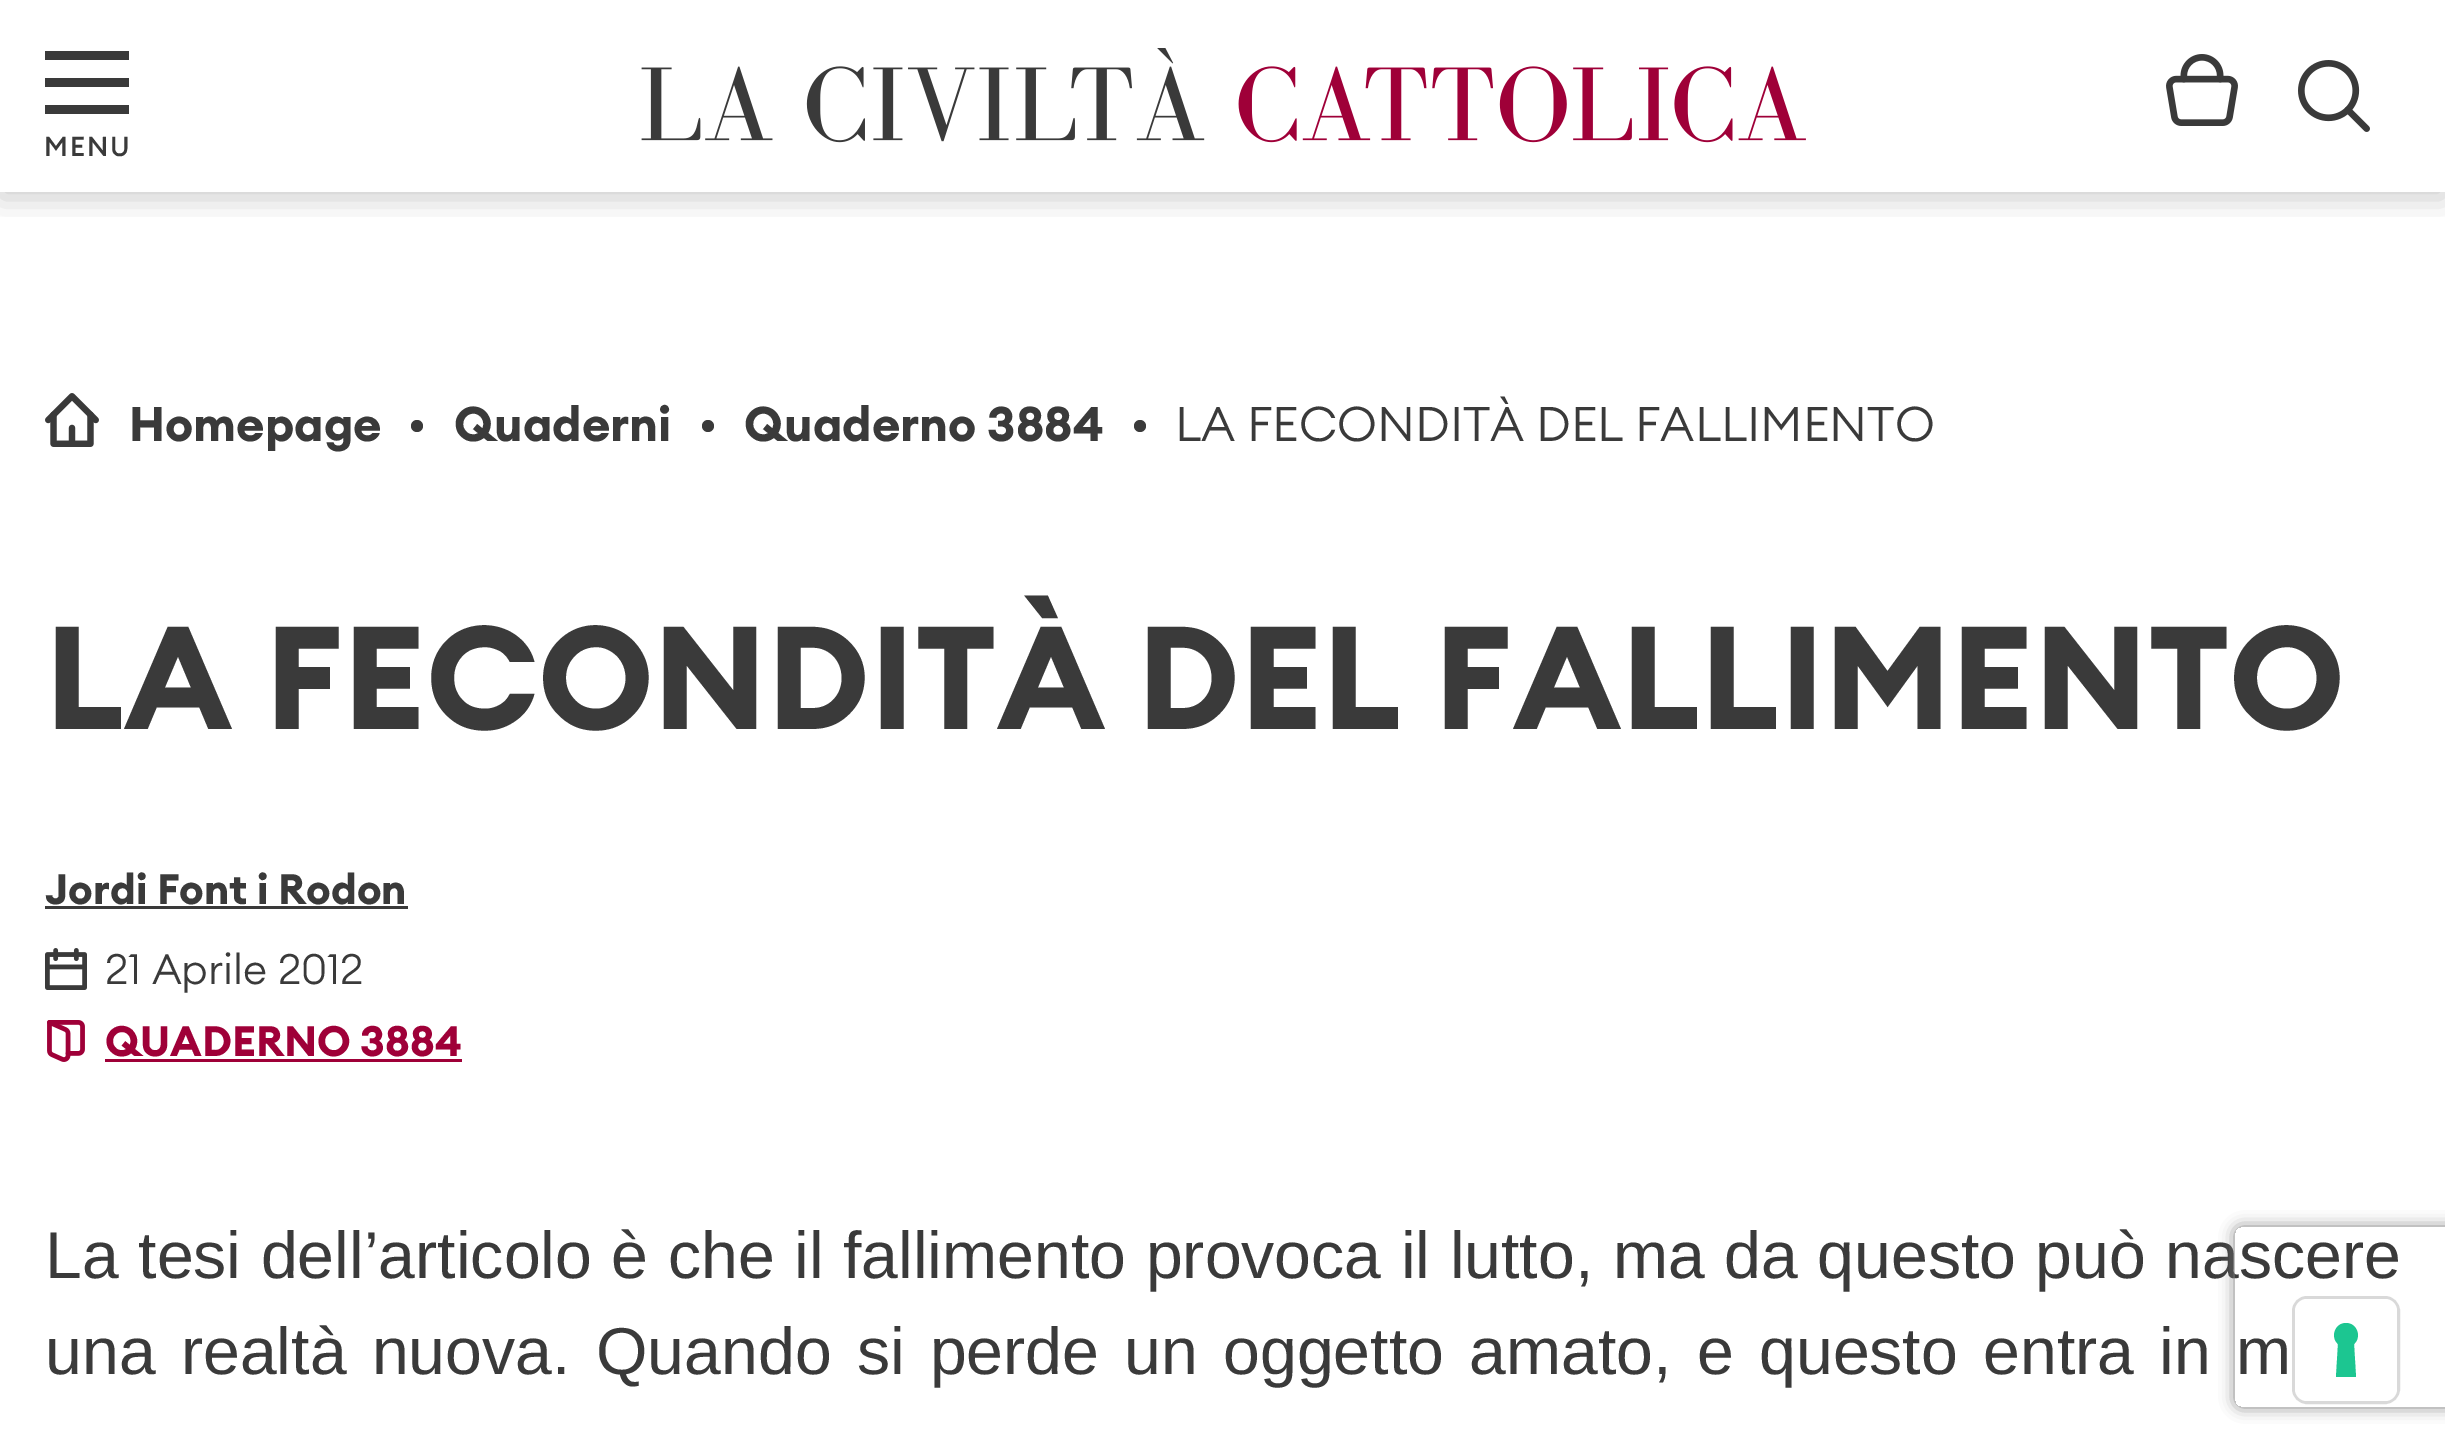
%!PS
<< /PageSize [2445 1447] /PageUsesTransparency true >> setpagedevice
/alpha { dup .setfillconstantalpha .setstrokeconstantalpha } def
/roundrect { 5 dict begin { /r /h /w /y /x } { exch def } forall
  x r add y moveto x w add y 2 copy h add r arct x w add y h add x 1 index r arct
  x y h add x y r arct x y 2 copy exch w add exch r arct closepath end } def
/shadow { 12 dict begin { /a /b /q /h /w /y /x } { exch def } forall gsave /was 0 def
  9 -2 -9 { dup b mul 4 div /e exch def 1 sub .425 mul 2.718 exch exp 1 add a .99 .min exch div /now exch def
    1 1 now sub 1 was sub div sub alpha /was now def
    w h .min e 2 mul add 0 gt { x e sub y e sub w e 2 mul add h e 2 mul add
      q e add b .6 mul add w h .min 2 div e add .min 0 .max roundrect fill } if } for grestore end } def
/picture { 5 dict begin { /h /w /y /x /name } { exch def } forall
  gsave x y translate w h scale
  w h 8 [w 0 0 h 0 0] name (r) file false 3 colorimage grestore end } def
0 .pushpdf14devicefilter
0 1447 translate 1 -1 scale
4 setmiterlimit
1 setgray
0 0 2445 1447 rectfill
gsave
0 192 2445 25 rectclip
0 setgray
0 6 2445 192 0 15 0.2 shadow
grestore
(img1.rgb) 641 48 1165 95 picture
(img2.rgb) 2166 54 72 72 picture
(img3.rgb) 2298 60 72 72 picture
0.227 setgray
45 78 84 9 rectfill
45 51 84 9 rectfill
45 105 84 9 rectfill
/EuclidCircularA-Medium [27 0 0 -27 0 0] selectfont
44 156 moveto 2 0 (MENU) ashow
(img4.rgb) 45 393 54 54 picture
/EuclidCircularA-Bold [48 0 0 -48 0 0] selectfont
129 441 moveto (Homepage) show
newpath 417 426 6 0 360 arc closepath fill
454 441 moveto (Quaderni) show
newpath 708 426 6 0 360 arc closepath fill
744 441 moveto (Quaderno 3884) show
newpath 1140 426 6 0 360 arc closepath fill
/EuclidCircularA-Light [48 0 0 -48 0 0] selectfont
1175 441 moveto (LA FECONDITÀ DEL FALLIMENTO) show
/EuclidCircularA-Bold [144 0 0 -144 0 0] selectfont
45 729 moveto (LA FECONDITÀ DEL FALLIMENTO) show
/EuclidCircularA-Bold [42 0 0 -42 0 0] selectfont
45 904 moveto (Jordi Font i Rodon) show
45 906 363 3 rectfill
(img5.rgb) 45 948 42 42 picture
/EuclidCircularA-Light [42 0 0 -42 0 0] selectfont
105 984 moveto (21 Aprile 2012) show
(img6.rgb) 47 1020 38 42 picture
/EuclidCircularA-Bold [42 0 0 -42 0 0] selectfont
0.624 0 0.22 setrgbcolor
105 1056 moveto (QUADERNO 3884) show
105 1059 357 3 rectfill
/LiberationSans-Regular [66.25 0 0 -66.25 0 0] selectfont
0.227 setgray
45 1278 moveto 1 0 32 (La tesi dell’articolo è che il fallimento provoca il lutto, ma da questo può nascere) widthshow
45 1374 moveto 6.75 0 32 (una realtà nuova. Quando si perde un oggetto amato, e questo entra in m) widthshow
gsave
newpath 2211 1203 moveto 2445 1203 lineto 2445 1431 lineto 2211 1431 lineto closepath 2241 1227 moveto 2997 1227 lineto 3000.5 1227 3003 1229.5 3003 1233 curveto 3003 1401 lineto 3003 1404.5 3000.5 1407 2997 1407 curveto 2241 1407 lineto 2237.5 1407 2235 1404.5 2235 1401 curveto 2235 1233 lineto 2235 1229.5 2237.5 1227 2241 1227 curveto closepath eoclip newpath
0.502 setgray
2235 1227 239 180 6 7.5 1 shadow
grestore
0.15 alpha
0 setgray
3 setlinewidth
2293.5 1297.5 105 105 13.5 roundrect stroke
1 alpha
1 setgray
2295 1299 102 102 12 roundrect fill
0.11 0.776 0.569 setrgbcolor
newpath 2346 1323 moveto 2357 1323 2362 1337 2354 1344 curveto 2356 1377 lineto 2336 1377 lineto 2338 1344 lineto 2330 1337 2335 1323 2346 1323 curveto closepath eofill
.poppdf14devicefilter showpage
